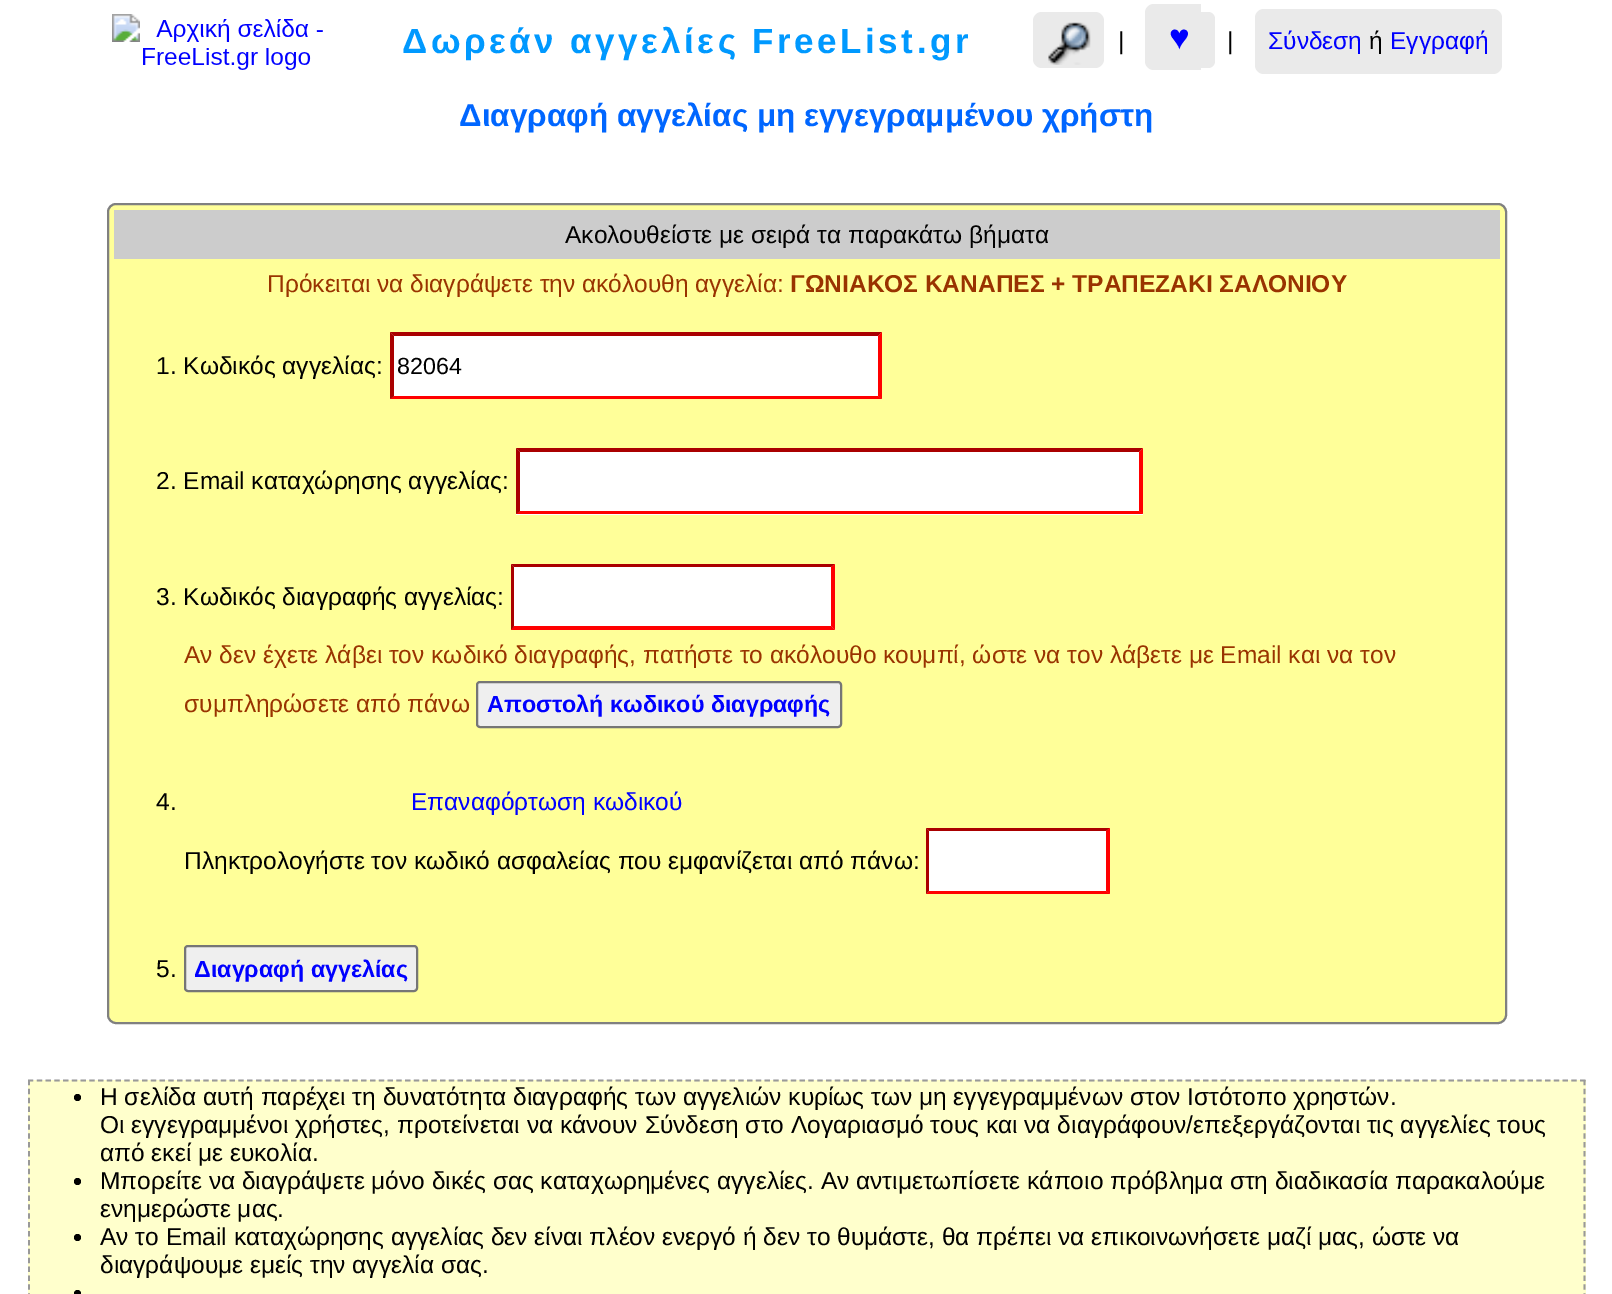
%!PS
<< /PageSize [1612 1294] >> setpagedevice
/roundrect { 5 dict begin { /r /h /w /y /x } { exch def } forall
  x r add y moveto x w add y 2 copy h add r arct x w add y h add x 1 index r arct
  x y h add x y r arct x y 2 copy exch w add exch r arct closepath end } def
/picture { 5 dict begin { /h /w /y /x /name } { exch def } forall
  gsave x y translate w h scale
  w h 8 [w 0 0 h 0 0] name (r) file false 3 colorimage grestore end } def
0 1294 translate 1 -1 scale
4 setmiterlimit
1 setgray
0 0 1612 1294 rectfill
(img1.rgb) 112 14 211 56 picture
/LiberationSans-Bold [35 0 0 -35 0 0] selectfont
0 0.6 1 setrgbcolor
402 53 moveto 3.5 0 (Δωρεάν αγγελίες FreeList.gr) ashow
0.918 setgray
1033 12 71 56 9 roundrect fill
(img2.rgb) 1048 22 43 43 picture
/LiberationSans-Regular [24.5 0 0 -24.5 0 0] selectfont
0 setgray
1118 49 moveto (|) show
0.918 setgray
newpath 1154 4 moveto 1201 4 lineto 1201 70 lineto 1154 70 lineto 1149 70 1145 66 1145 61 curveto 1145 13 lineto 1145 8 1149 4 1154 4 curveto closepath fill
/LiberationSans-Regular [35 0 0 -35 0 0] selectfont
0 0 1 setrgbcolor
1169 49 moveto (♥) show
0.918 setgray
newpath 1201 12 moveto 1208 12 lineto 1212 12 1215 15 1215 19 curveto 1215 61 lineto 1215 65 1212 68 1208 68 curveto 1201 68 lineto closepath fill
/LiberationSans-Regular [24.5 0 0 -24.5 0 0] selectfont
0 setgray
1227 49 moveto (|) show
0.918 setgray
1255 9 247 65 9 roundrect fill
0 0 1 setrgbcolor
1268 49 moveto (Σύνδεση) show
0 setgray
1369 49 moveto (ή) show
0 0 1 setrgbcolor
1390 49 moveto (Εγγραφή) show
/LiberationSans-Bold [31.5 0 0 -31.5 0 0] selectfont
0 0.4 1 setrgbcolor
459 126 moveto (Διαγραφή αγγελίας μη εγγεγραμμένου χρήστη) show
1 1 0.6 setrgbcolor
108 204 1398 819 8 roundrect gsave fill grestore
0.502 setgray
2 setlinewidth
stroke
0.8 setgray
114 210 1386 49 rectfill
/LiberationSans-Regular [24.5 0 0 -24.5 0 0] selectfont
0 setgray
565 243 moveto (Ακολουθείστε με σειρά τα παρακάτω βήματα) show
0.6 0.2 0 setrgbcolor
267 292 moveto (Πρόκειται να διαγράψετε την ακόλουθη αγγελία:) show
/LiberationSans-Bold [24.5 0 0 -24.5 0 0] selectfont
790 292 moveto (ΓΩΝΙΑΚΟΣ ΚΑΝΑΠΕΣ + ΤΡΑΠΕΖΑΚΙ ΣΑΛΟΝΙΟΥ) show
/LiberationSans-Regular [24.5 0 0 -24.5 0 0] selectfont
0 setgray
156 374 moveto (1. Κωδικός αγγελίας:) show
1 setgray
390 333 492 66 rectfill
0.667 0 0 setrgbcolor
newpath 390 332 moveto 882 332 lineto 878 336 lineto 394 336 lineto closepath fill
1 0 0 setrgbcolor
newpath 882 332 moveto 882 399 lineto 878 396 lineto 878 336 lineto closepath fill
newpath 882 399 moveto 390 399 lineto 394 396 lineto 878 396 lineto closepath fill
0.667 0 0 setrgbcolor
newpath 390 399 moveto 390 332 lineto 394 336 lineto 394 396 lineto closepath fill
/LiberationSans-Regular [23.3 0 0 -23.3 0 0] selectfont
0 setgray
397 374 moveto (82064) show
/LiberationSans-Regular [24.5 0 0 -24.5 0 0] selectfont
156 489 moveto (2. Email καταχώρησης αγγελίας:) show
1 setgray
516 448 627 67 rectfill
0.667 0 0 setrgbcolor
newpath 516 448 moveto 1143 448 lineto 1139 452 lineto 520 452 lineto closepath fill
1 0 0 setrgbcolor
newpath 1143 448 moveto 1143 514 lineto 1139 511 lineto 1139 452 lineto closepath fill
newpath 1143 514 moveto 516 514 lineto 520 511 lineto 1139 511 lineto closepath fill
0.667 0 0 setrgbcolor
newpath 516 514 moveto 516 448 lineto 520 452 lineto 520 511 lineto closepath fill
0 setgray
156 605 moveto (3. Κωδικός διαγραφής αγγελίας:) show
1 setgray
511 564 324 66 rectfill
0.667 0 0 setrgbcolor
newpath 511 564 moveto 835 564 lineto 831 567 lineto 514 567 lineto closepath fill
1 0 0 setrgbcolor
newpath 835 564 moveto 835 630 lineto 831 626 lineto 831 567 lineto closepath fill
newpath 835 630 moveto 511 630 lineto 514 626 lineto 831 626 lineto closepath fill
0.667 0 0 setrgbcolor
newpath 511 630 moveto 511 564 lineto 514 567 lineto 514 626 lineto closepath fill
0.6 0.2 0 setrgbcolor
184 663 moveto (Αν δεν έχετε λάβει τον κωδικό διαγραφής, πατήστε το ακόλουθο κουμπί, ώστε να τον λάβετε με Email και να τον) show
184 712 moveto (συμπληρώσετε από πάνω) show
0.937 setgray
477 682 364 45 3 roundrect gsave fill grestore
0.463 setgray
stroke
/LiberationSans-Bold [23.3 0 0 -23.3 0 0] selectfont
0 0 1 setrgbcolor
487 712 moveto (Αποστολή κωδικού διαγραφής) show
/LiberationSans-Regular [24.5 0 0 -24.5 0 0] selectfont
0 setgray
156 810 moveto (4.) show
0 0 1 setrgbcolor
411 810 moveto (Επαναφόρτωση κωδικού) show
0 setgray
184 869 moveto (Πληκτρολογήστε τον κωδικό ασφαλείας που εμφανίζεται από πάνω:) show
1 setgray
926 828 184 66 rectfill
0.667 0 0 setrgbcolor
newpath 926 828 moveto 1110 828 lineto 1106 831 lineto 929 831 lineto closepath fill
1 0 0 setrgbcolor
newpath 1110 828 moveto 1110 894 lineto 1106 891 lineto 1106 831 lineto closepath fill
newpath 1110 894 moveto 926 894 lineto 929 891 lineto 1106 891 lineto closepath fill
0.667 0 0 setrgbcolor
newpath 926 894 moveto 926 828 lineto 929 831 lineto 929 891 lineto closepath fill
0 setgray
156 977 moveto (5.) show
0.937 setgray
185 946 232 45 3 roundrect gsave fill grestore
0.463 setgray
stroke
/LiberationSans-Bold [23.3 0 0 -23.3 0 0] selectfont
0 0 1 setrgbcolor
194 977 moveto (Διαγραφή αγγελίας) show
1 1 0.8 setrgbcolor
28 1080 1558 214 rectfill
0.6 setgray
1.8 setlinewidth
[5.25 3.52] 0 setdash
newpath 28 1080.5 moveto 1585.5 1080.5 lineto stroke
[5.25 3.64] 0 setdash
newpath 1584.5 1080 moveto 1584.5 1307 lineto stroke
newpath 29 1080 moveto 29 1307 lineto stroke
0 setgray
newpath 77.5 1097.5 3.5 0 360 arc closepath fill
/LiberationSans-Regular [24.5 0 0 -24.5 0 0] selectfont
100 1105 moveto (Η σελίδα αυτή παρέχει τη δυνατότητα διαγραφής των αγγελιών κυρίως των μη εγγεγραμμένων στον Ιστότοπο χρηστών.) show
100 1133 moveto (Οι εγγεγραμμένοι χρήστες, προτείνεται να κάνουν Σύνδεση στο Λογαριασμό τους και να διαγράφουν/επεξεργάζονται τις αγγελίες τους) show
100 1161 moveto (από εκεί με ευκολία.) show
newpath 77.5 1181.5 3.5 0 360 arc closepath fill
100 1189 moveto (Μπορείτε να διαγράψετε μόνο δικές σας καταχωρημένες αγγελίες. Αν αντιμετωπίσετε κάποιο πρόβλημα στη διαδικασία παρακαλούμε) show
100 1217 moveto (ενημερώστε μας.) show
newpath 77.5 1237.5 3.5 0 360 arc closepath fill
100 1245 moveto (Αν το Email καταχώρησης αγγελίας δεν είναι πλέον ενεργό ή δεν το θυμάστε, θα πρέπει να επικοινωνήσετε μαζί μας, ώστε να) show
100 1273 moveto (διαγράψουμε εμείς την αγγελία σας.) show
newpath 77.5 1293.5 3.5 0 360 arc closepath fill
showpage
